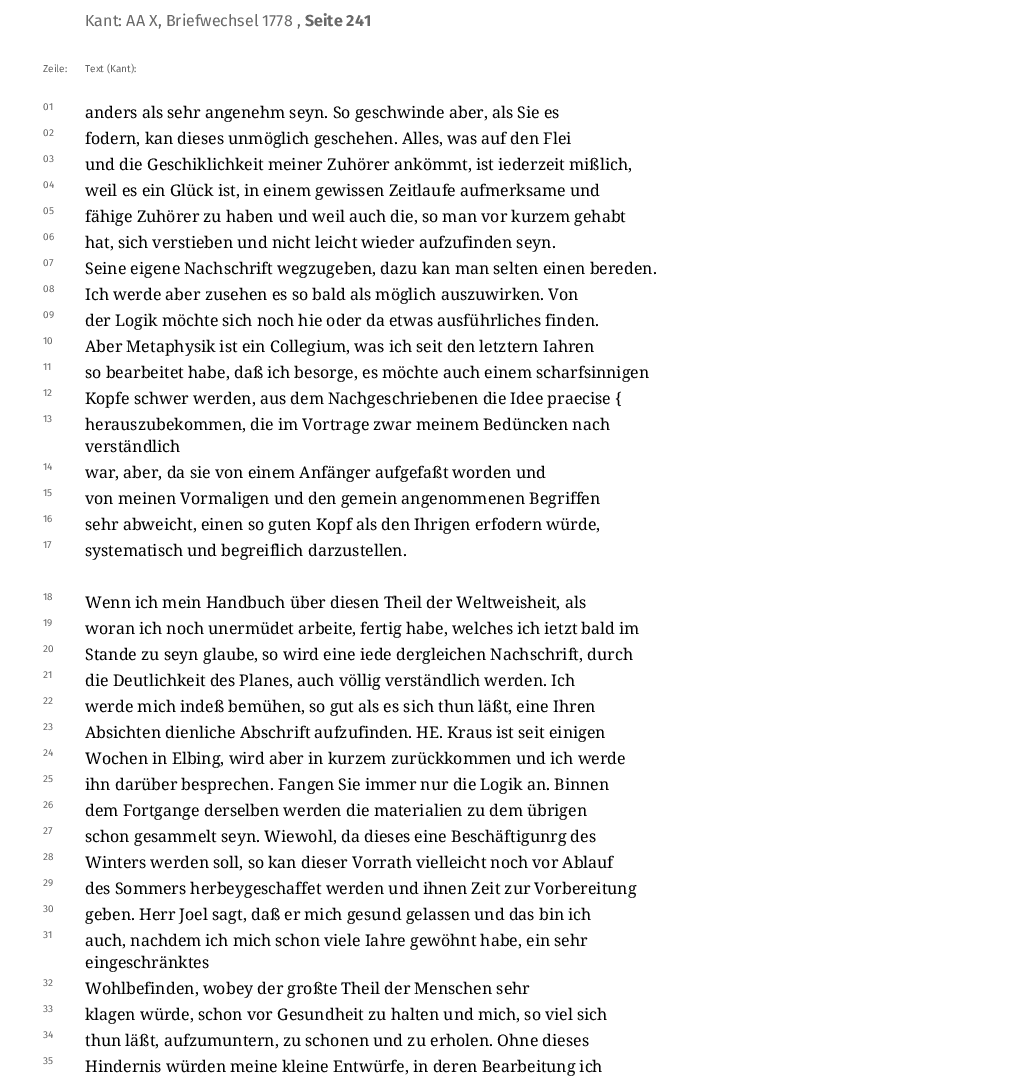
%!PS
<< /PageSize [1030 1079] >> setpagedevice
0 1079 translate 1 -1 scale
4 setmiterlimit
1 setgray
0 0 1030 1079 rectfill
/FiraSans-Regular [16 0 0 -16 0 0] selectfont
0.412 setgray
85 26 moveto (Kant: AA X, Briefwechsel 1778 ,) show
/FiraSans-Bold [16 0 0 -16 0 0] selectfont
305 26 moveto (Seite 241) show
/FiraSans-Regular [10 0 0 -10 0 0] selectfont
43 72 moveto (Zeile:) show
85 72 moveto (Text \(Kant\):) show
43 110 moveto (01) show
/NotoSerif-Regular [16 0 0 -16 0 0] selectfont
0 setgray
85 118 moveto (anders als sehr angenehm seyn. So geschwinde aber, als Sie es) show
/FiraSans-Regular [10 0 0 -10 0 0] selectfont
0.412 setgray
43 136 moveto (02) show
/NotoSerif-Regular [16 0 0 -16 0 0] selectfont
0 setgray
85 144 moveto (fodern, kan dieses unmöglich geschehen. Alles, was auf den Flei) show
/FiraSans-Regular [10 0 0 -10 0 0] selectfont
0.412 setgray
43 162 moveto (03) show
/NotoSerif-Regular [16 0 0 -16 0 0] selectfont
0 setgray
85 170 moveto (und die Geschiklichkeit meiner Zuhörer ankömmt, ist iederzeit mißlich,) show
/FiraSans-Regular [10 0 0 -10 0 0] selectfont
0.412 setgray
43 188 moveto (04) show
/NotoSerif-Regular [16 0 0 -16 0 0] selectfont
0 setgray
85 196 moveto (weil es ein Glück ist, in einem gewissen Zeitlaufe aufmerksame und) show
/FiraSans-Regular [10 0 0 -10 0 0] selectfont
0.412 setgray
43 214 moveto (05) show
/NotoSerif-Regular [16 0 0 -16 0 0] selectfont
0 setgray
85 222 moveto (fähige Zuhörer zu haben und weil auch die, so man vor kurzem gehabt) show
/FiraSans-Regular [10 0 0 -10 0 0] selectfont
0.412 setgray
43 240 moveto (06) show
/NotoSerif-Regular [16 0 0 -16 0 0] selectfont
0 setgray
85 248 moveto (hat, sich verstieben und nicht leicht wieder aufzufinden seyn.) show
/FiraSans-Regular [10 0 0 -10 0 0] selectfont
0.412 setgray
43 266 moveto (07) show
/NotoSerif-Regular [16 0 0 -16 0 0] selectfont
0 setgray
85 274 moveto (Seine eigene Nachschrift wegzugeben, dazu kan man selten einen bereden.) show
/FiraSans-Regular [10 0 0 -10 0 0] selectfont
0.412 setgray
43 292 moveto (08) show
/NotoSerif-Regular [16 0 0 -16 0 0] selectfont
0 setgray
85 300 moveto (Ich werde aber zusehen es so bald als möglich auszuwirken. Von) show
/FiraSans-Regular [10 0 0 -10 0 0] selectfont
0.412 setgray
43 318 moveto (09) show
/NotoSerif-Regular [16 0 0 -16 0 0] selectfont
0 setgray
85 326 moveto (der Logik möchte sich noch hie oder da etwas ausführliches finden.) show
/FiraSans-Regular [10 0 0 -10 0 0] selectfont
0.412 setgray
43 344 moveto (10) show
/NotoSerif-Regular [16 0 0 -16 0 0] selectfont
0 setgray
85 352 moveto (Aber Metaphysik ist ein Collegium, was ich seit den letztern Iahren) show
/FiraSans-Regular [10 0 0 -10 0 0] selectfont
0.412 setgray
43 370 moveto (11) show
/NotoSerif-Regular [16 0 0 -16 0 0] selectfont
0 setgray
85 378 moveto (so bearbeitet habe, daß ich besorge, es möchte auch einem scharfsinnigen) show
/FiraSans-Regular [10 0 0 -10 0 0] selectfont
0.412 setgray
43 396 moveto (12) show
/NotoSerif-Regular [16 0 0 -16 0 0] selectfont
0 setgray
85 404 moveto (Kopfe schwer werden, aus dem Nachgeschriebenen die Idee praecise {) show
/FiraSans-Regular [10 0 0 -10 0 0] selectfont
0.412 setgray
43 422 moveto (13) show
/NotoSerif-Regular [16 0 0 -16 0 0] selectfont
0 setgray
85 430 moveto (herauszubekommen, die im Vortrage zwar meinem Bedüncken nach) show
85 452 moveto (verständlich) show
/FiraSans-Regular [10 0 0 -10 0 0] selectfont
0.412 setgray
43 470 moveto (14) show
/NotoSerif-Regular [16 0 0 -16 0 0] selectfont
0 setgray
85 478 moveto (war, aber, da sie von einem Anfänger aufgefaßt worden und) show
/FiraSans-Regular [10 0 0 -10 0 0] selectfont
0.412 setgray
43 496 moveto (15) show
/NotoSerif-Regular [16 0 0 -16 0 0] selectfont
0 setgray
85 504 moveto (von meinen Vormaligen und den gemein angenommenen Begriffen) show
/FiraSans-Regular [10 0 0 -10 0 0] selectfont
0.412 setgray
43 522 moveto (16) show
/NotoSerif-Regular [16 0 0 -16 0 0] selectfont
0 setgray
85 530 moveto (sehr abweicht, einen so guten Kopf als den Ihrigen erfodern würde,) show
/FiraSans-Regular [10 0 0 -10 0 0] selectfont
0.412 setgray
43 548 moveto (17) show
/NotoSerif-Regular [16 0 0 -16 0 0] selectfont
0 setgray
85 556 moveto (systematisch und begreiflich darzustellen.) show
/FiraSans-Regular [10 0 0 -10 0 0] selectfont
0.412 setgray
43 600 moveto (18) show
/NotoSerif-Regular [16 0 0 -16 0 0] selectfont
0 setgray
85 608 moveto (Wenn ich mein Handbuch über diesen Theil der Weltweisheit, als) show
/FiraSans-Regular [10 0 0 -10 0 0] selectfont
0.412 setgray
43 626 moveto (19) show
/NotoSerif-Regular [16 0 0 -16 0 0] selectfont
0 setgray
85 634 moveto (woran ich noch unermüdet arbeite, fertig habe, welches ich ietzt bald im) show
/FiraSans-Regular [10 0 0 -10 0 0] selectfont
0.412 setgray
43 652 moveto (20) show
/NotoSerif-Regular [16 0 0 -16 0 0] selectfont
0 setgray
85 660 moveto (Stande zu seyn glaube, so wird eine iede dergleichen Nachschrift, durch) show
/FiraSans-Regular [10 0 0 -10 0 0] selectfont
0.412 setgray
43 678 moveto (21) show
/NotoSerif-Regular [16 0 0 -16 0 0] selectfont
0 setgray
85 686 moveto (die Deutlichkeit des Planes, auch völlig verständlich werden. Ich) show
/FiraSans-Regular [10 0 0 -10 0 0] selectfont
0.412 setgray
43 704 moveto (22) show
/NotoSerif-Regular [16 0 0 -16 0 0] selectfont
0 setgray
85 712 moveto (werde mich indeß bemühen, so gut als es sich thun läßt, eine Ihren) show
/FiraSans-Regular [10 0 0 -10 0 0] selectfont
0.412 setgray
43 730 moveto (23) show
/NotoSerif-Regular [16 0 0 -16 0 0] selectfont
0 setgray
85 738 moveto (Absichten dienliche Abschrift aufzufinden. HE. Kraus ist seit einigen) show
/FiraSans-Regular [10 0 0 -10 0 0] selectfont
0.412 setgray
43 756 moveto (24) show
/NotoSerif-Regular [16 0 0 -16 0 0] selectfont
0 setgray
85 764 moveto (Wochen in Elbing, wird aber in kurzem zurückkommen und ich werde) show
/FiraSans-Regular [10 0 0 -10 0 0] selectfont
0.412 setgray
43 782 moveto (25) show
/NotoSerif-Regular [16 0 0 -16 0 0] selectfont
0 setgray
85 790 moveto (ihn darüber besprechen. Fangen Sie immer nur die Logik an. Binnen) show
/FiraSans-Regular [10 0 0 -10 0 0] selectfont
0.412 setgray
43 808 moveto (26) show
/NotoSerif-Regular [16 0 0 -16 0 0] selectfont
0 setgray
85 816 moveto (dem Fortgange derselben werden die materialien zu dem übrigen) show
/FiraSans-Regular [10 0 0 -10 0 0] selectfont
0.412 setgray
43 834 moveto (27) show
/NotoSerif-Regular [16 0 0 -16 0 0] selectfont
0 setgray
85 842 moveto (schon gesammelt seyn. Wiewohl, da dieses eine Beschäftigunrg des) show
/FiraSans-Regular [10 0 0 -10 0 0] selectfont
0.412 setgray
43 860 moveto (28) show
/NotoSerif-Regular [16 0 0 -16 0 0] selectfont
0 setgray
85 868 moveto (Winters werden soll, so kan dieser Vorrath vielleicht noch vor Ablauf) show
/FiraSans-Regular [10 0 0 -10 0 0] selectfont
0.412 setgray
43 886 moveto (29) show
/NotoSerif-Regular [16 0 0 -16 0 0] selectfont
0 setgray
85 894 moveto (des Sommers herbeygeschaffet werden und ihnen Zeit zur Vorbereitung) show
/FiraSans-Regular [10 0 0 -10 0 0] selectfont
0.412 setgray
43 912 moveto (30) show
/NotoSerif-Regular [16 0 0 -16 0 0] selectfont
0 setgray
85 920 moveto (geben. Herr Joel sagt, daß er mich gesund gelassen und das bin ich) show
/FiraSans-Regular [10 0 0 -10 0 0] selectfont
0.412 setgray
43 938 moveto (31) show
/NotoSerif-Regular [16 0 0 -16 0 0] selectfont
0 setgray
85 946 moveto (auch, nachdem ich mich schon viele Iahre gewöhnt habe, ein sehr) show
85 968 moveto (eingeschränktes) show
/FiraSans-Regular [10 0 0 -10 0 0] selectfont
0.412 setgray
43 986 moveto (32) show
/NotoSerif-Regular [16 0 0 -16 0 0] selectfont
0 setgray
85 994 moveto (Wohlbefinden, wobey der großte Theil der Menschen sehr) show
/FiraSans-Regular [10 0 0 -10 0 0] selectfont
0.412 setgray
43 1012 moveto (33) show
/NotoSerif-Regular [16 0 0 -16 0 0] selectfont
0 setgray
85 1020 moveto (klagen würde, schon vor Gesundheit zu halten und mich, so viel sich) show
/FiraSans-Regular [10 0 0 -10 0 0] selectfont
0.412 setgray
43 1038 moveto (34) show
/NotoSerif-Regular [16 0 0 -16 0 0] selectfont
0 setgray
85 1046 moveto (thun läßt, aufzumuntern, zu schonen und zu erholen. Ohne dieses) show
/FiraSans-Regular [10 0 0 -10 0 0] selectfont
0.412 setgray
43 1064 moveto (35) show
/NotoSerif-Regular [16 0 0 -16 0 0] selectfont
0 setgray
85 1072 moveto (Hindernis würden meine kleine Entwürfe, in deren Bearbeitung ich) show
showpage
